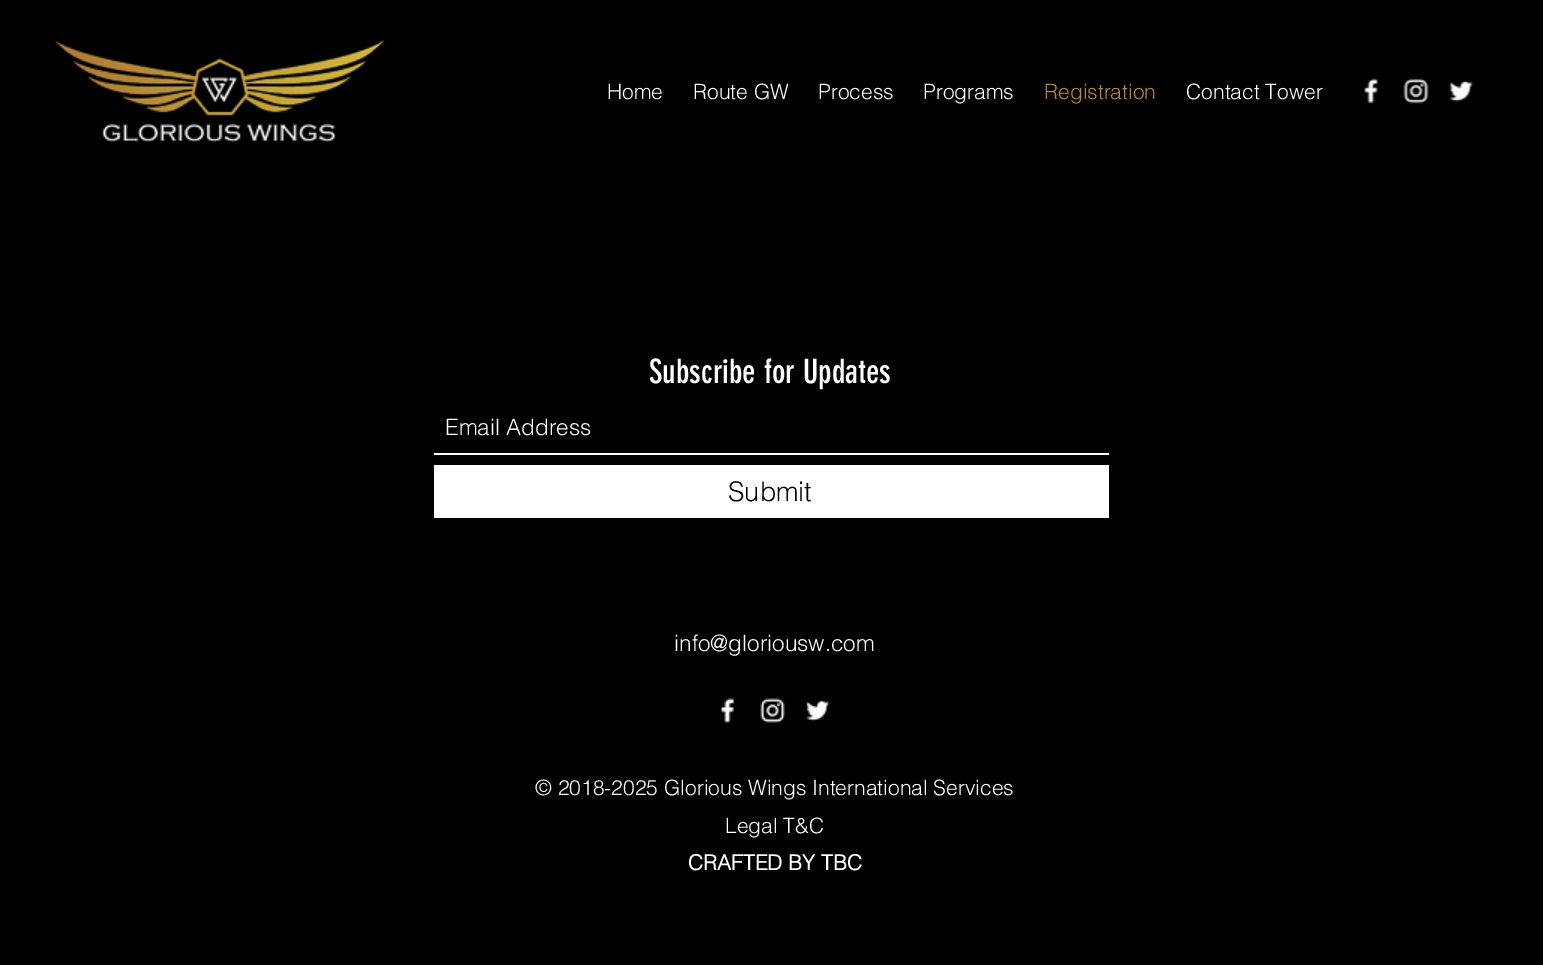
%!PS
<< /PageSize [1543 965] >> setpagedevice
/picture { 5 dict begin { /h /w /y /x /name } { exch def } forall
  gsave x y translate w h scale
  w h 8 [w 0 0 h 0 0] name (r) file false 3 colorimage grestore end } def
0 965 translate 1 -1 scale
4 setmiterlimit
0 setgray
0 0 1543 965 rectfill
(img1.rgb) 55 39 330 104 picture
/helvetica-Light [21 0 0 -21 0 0] selectfont
1 setgray
607 99 moveto (Home) show
693 99 moveto (Route GW) show
818 99 moveto (Process) show
923 99 moveto (Programs) show
0.706 0.529 0.235 setrgbcolor
1044 99 moveto (Registration) show
1 setgray
1186 99 moveto (Contact Tower) show
(img2.rgb) 1364 78 14 26 picture
(img3.rgb) 1403 78 26 26 picture
(img4.rgb) 1449 80 25 22 picture
/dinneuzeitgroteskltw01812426-Regular [33 0 0 -33 0 0] selectfont
649 383 moveto (Subscribe for Updates) show
434 453 675 2 rectfill
/helvetica-Light [22.5 0 0 -22.5 0 0] selectfont
445 435 moveto (Email Address) show
434 465 675 53 rectfill
/helvetica-Light [27 0 0 -27 0 0] selectfont
0 setgray
728 501 moveto (Submit) show
/helvetica-Light [22.5 0 0 -22.5 0 0] selectfont
1 setgray
674 651 moveto (info@gloriousw.com) show
(img5.rgb) 721 698 14 25 picture
(img6.rgb) 760 698 25 25 picture
(img7.rgb) 805 700 25 22 picture
/helvetica-Light [21 0 0 -21 0 0] selectfont
535 795 moveto (© 2018-2025 Glorious Wings International Services) show
725 833 moveto (Legal T&C) show
/helvetica-Bold [21 0 0 -21 0 0] selectfont
688 870 moveto (CRAFTED BY TBC) show
showpage
